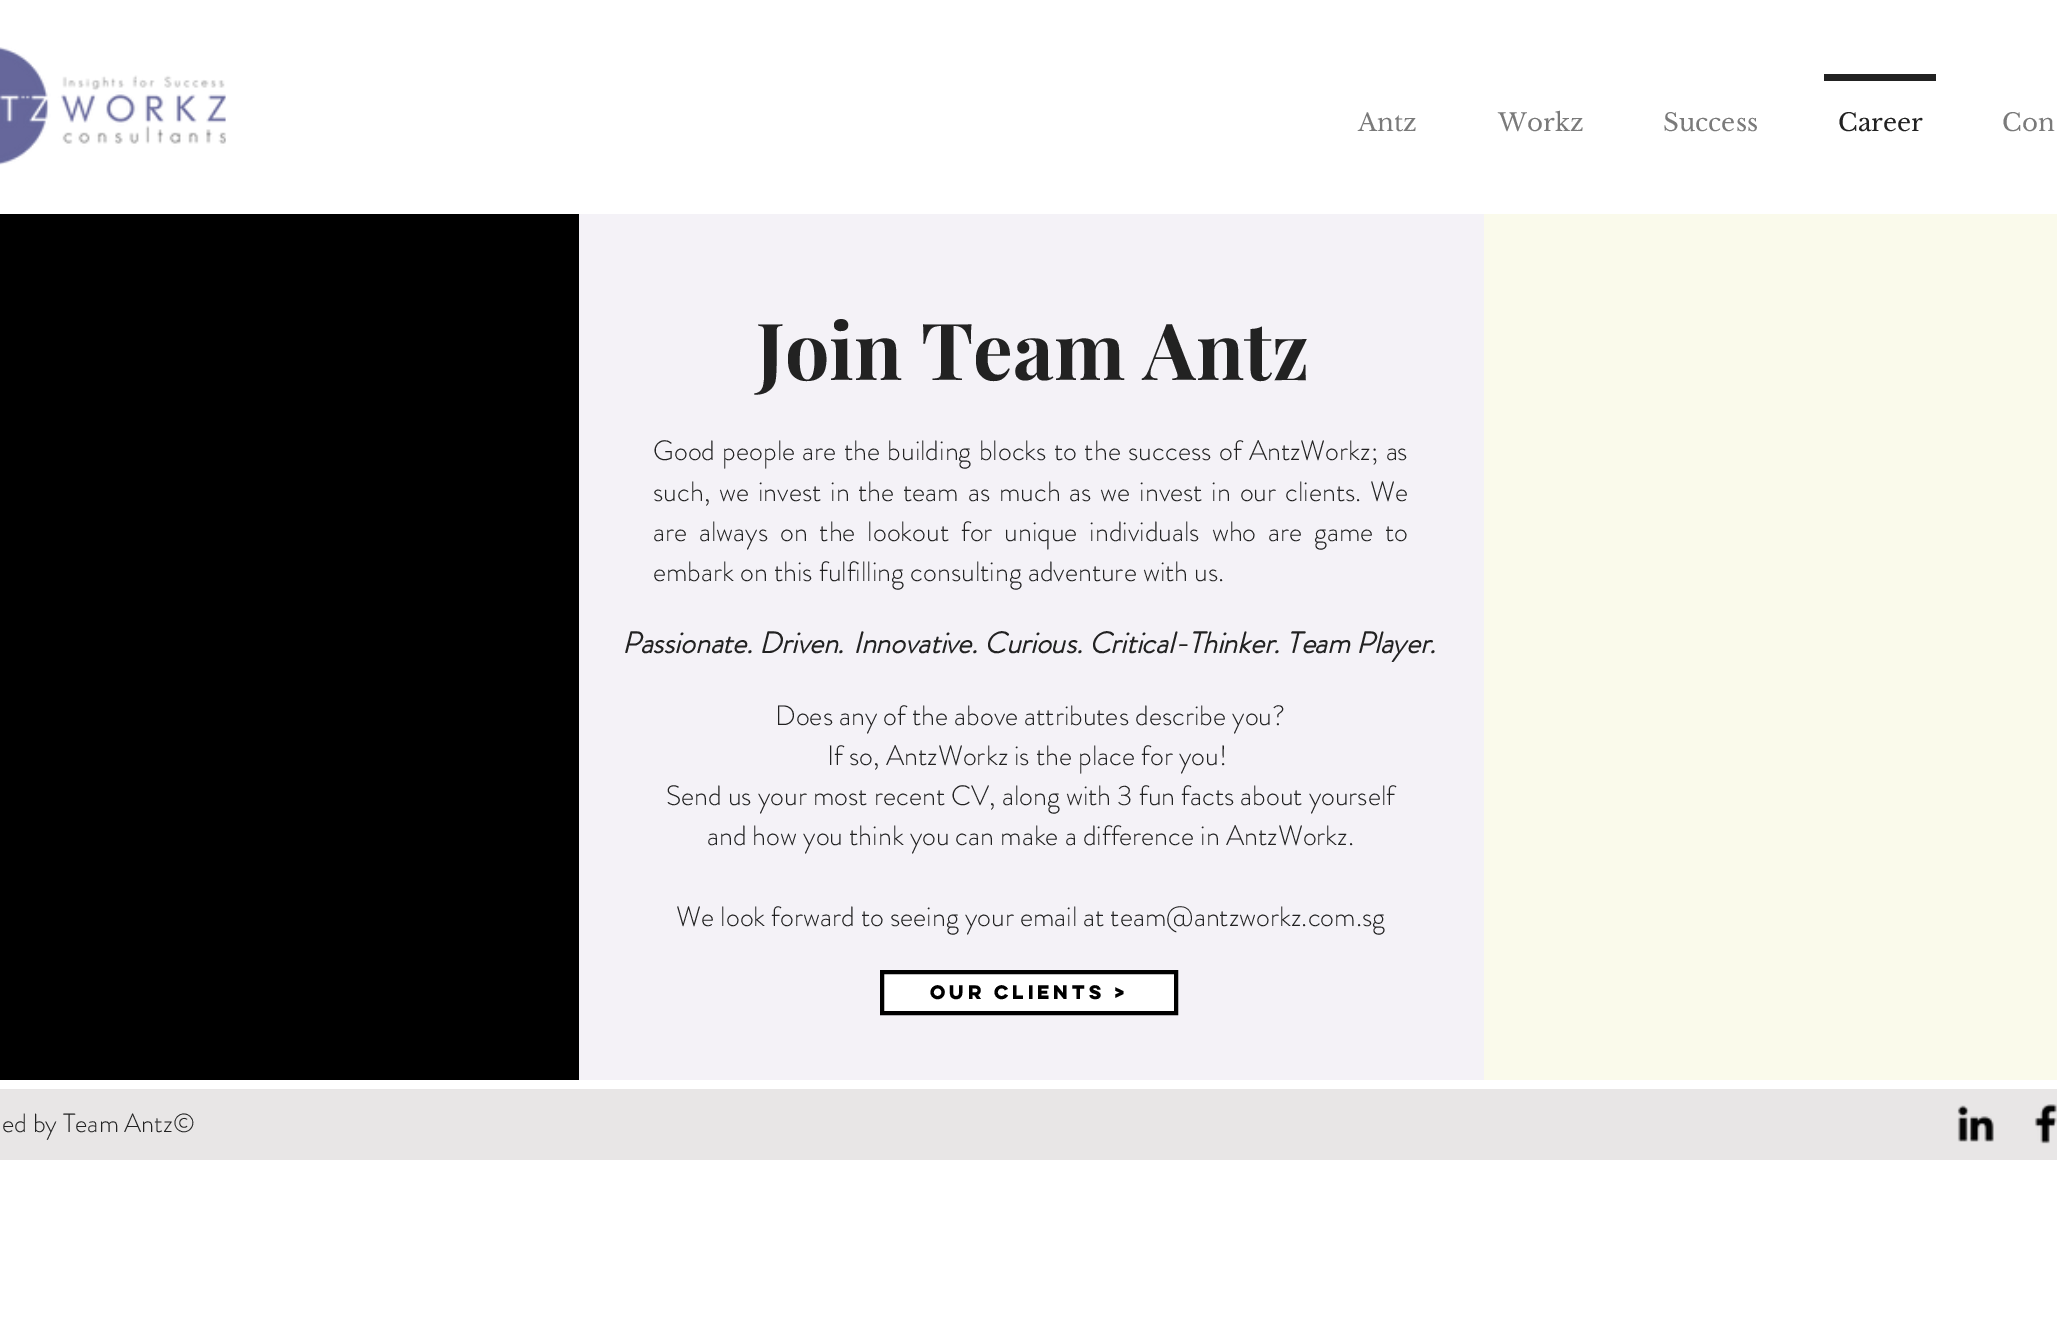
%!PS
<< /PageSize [2057 1343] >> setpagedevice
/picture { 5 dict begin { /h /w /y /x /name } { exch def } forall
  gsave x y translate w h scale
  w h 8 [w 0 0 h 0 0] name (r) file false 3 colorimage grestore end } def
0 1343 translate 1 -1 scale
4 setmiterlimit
1 setgray
0 0 2057 1343 rectfill
(img1.rgb) 0 47 226 118 picture
/LibreBaskerville-Regular [24.5 0 0 -24.5 0 0] selectfont
0.478 setgray
1358 131 moveto (Antz) show
1498 131 moveto (Workz) show
1663 131 moveto (Success) show
0.133 setgray
1824 74 112 7 rectfill
1838 131 moveto (Career) show
0.478 setgray
2002 131 moveto (Con) show
0 setgray
0 214 579 866 rectfill
0.957 0.949 0.969 setrgbcolor
579 214 905 866 rectfill
/PlayfairDisplay-Bold [78.75 0 0 -78.75 0 0] selectfont
0.133 setgray
756 380 moveto (Join Team Antz) show
/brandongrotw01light-Light [28 0 0 -28 0 0] selectfont
653 460 moveto 1.25 0 32 (Good people are the building blocks to the success of AntzWorkz; as) widthshow
653 501 moveto 2.75 0 32 (such, we invest in the team as much as we invest in our clients. We) widthshow
653 541 moveto 5.75 0 32 (are always on the lookout for unique individuals who are game to) widthshow
653 581 moveto (embark on this fulfilling consulting adventure with us.) show
/brandongrotw01light-BoldItalic [29.75 0 0 -29.75 0 0] selectfont
622 653 moveto (Passionate. Driven.) show
853 653 moveto (Innovative. Curious.) show
1089 653 moveto (Critical-Thinker. Team Player.) show
/brandongrotw01light-Light [28 0 0 -28 0 0] selectfont
775 725 moveto (Does any of the above attributes describe you?) show
827 765 moveto (If so, AntzWorkz is the place for you!) show
666 805 moveto (Send us your most recent CV, along with 3 fun facts about yourself) show
707 845 moveto (and how you think you can make a difference in AntzWorkz.) show
676 926 moveto (We look forward to seeing your email at team@antzworkz.com.sg) show
1 setgray
newpath 882 972 moveto 1176 972 lineto 1176 1013 lineto 882 1013 lineto closepath gsave fill grestore
0 setgray
4 setlinewidth
stroke
/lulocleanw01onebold-Bold [17.5 0 0 -17.5 0 0] selectfont
930 999 moveto (our clients >) show
0.98 0.98 0.922 setrgbcolor
1484 214 573 866 rectfill
0.91 0.902 0.902 setrgbcolor
0 1089 2057 71 rectfill
/brandongrotw01light-Light [26.25 0 0 -26.25 0 0] selectfont
0.133 setgray
2 1132 moveto (ed by Team Antz©) show
(img2.rgb) 1957 1105 37 37 picture
(img3.rgb) 2034 1104 23 40 picture
showpage
